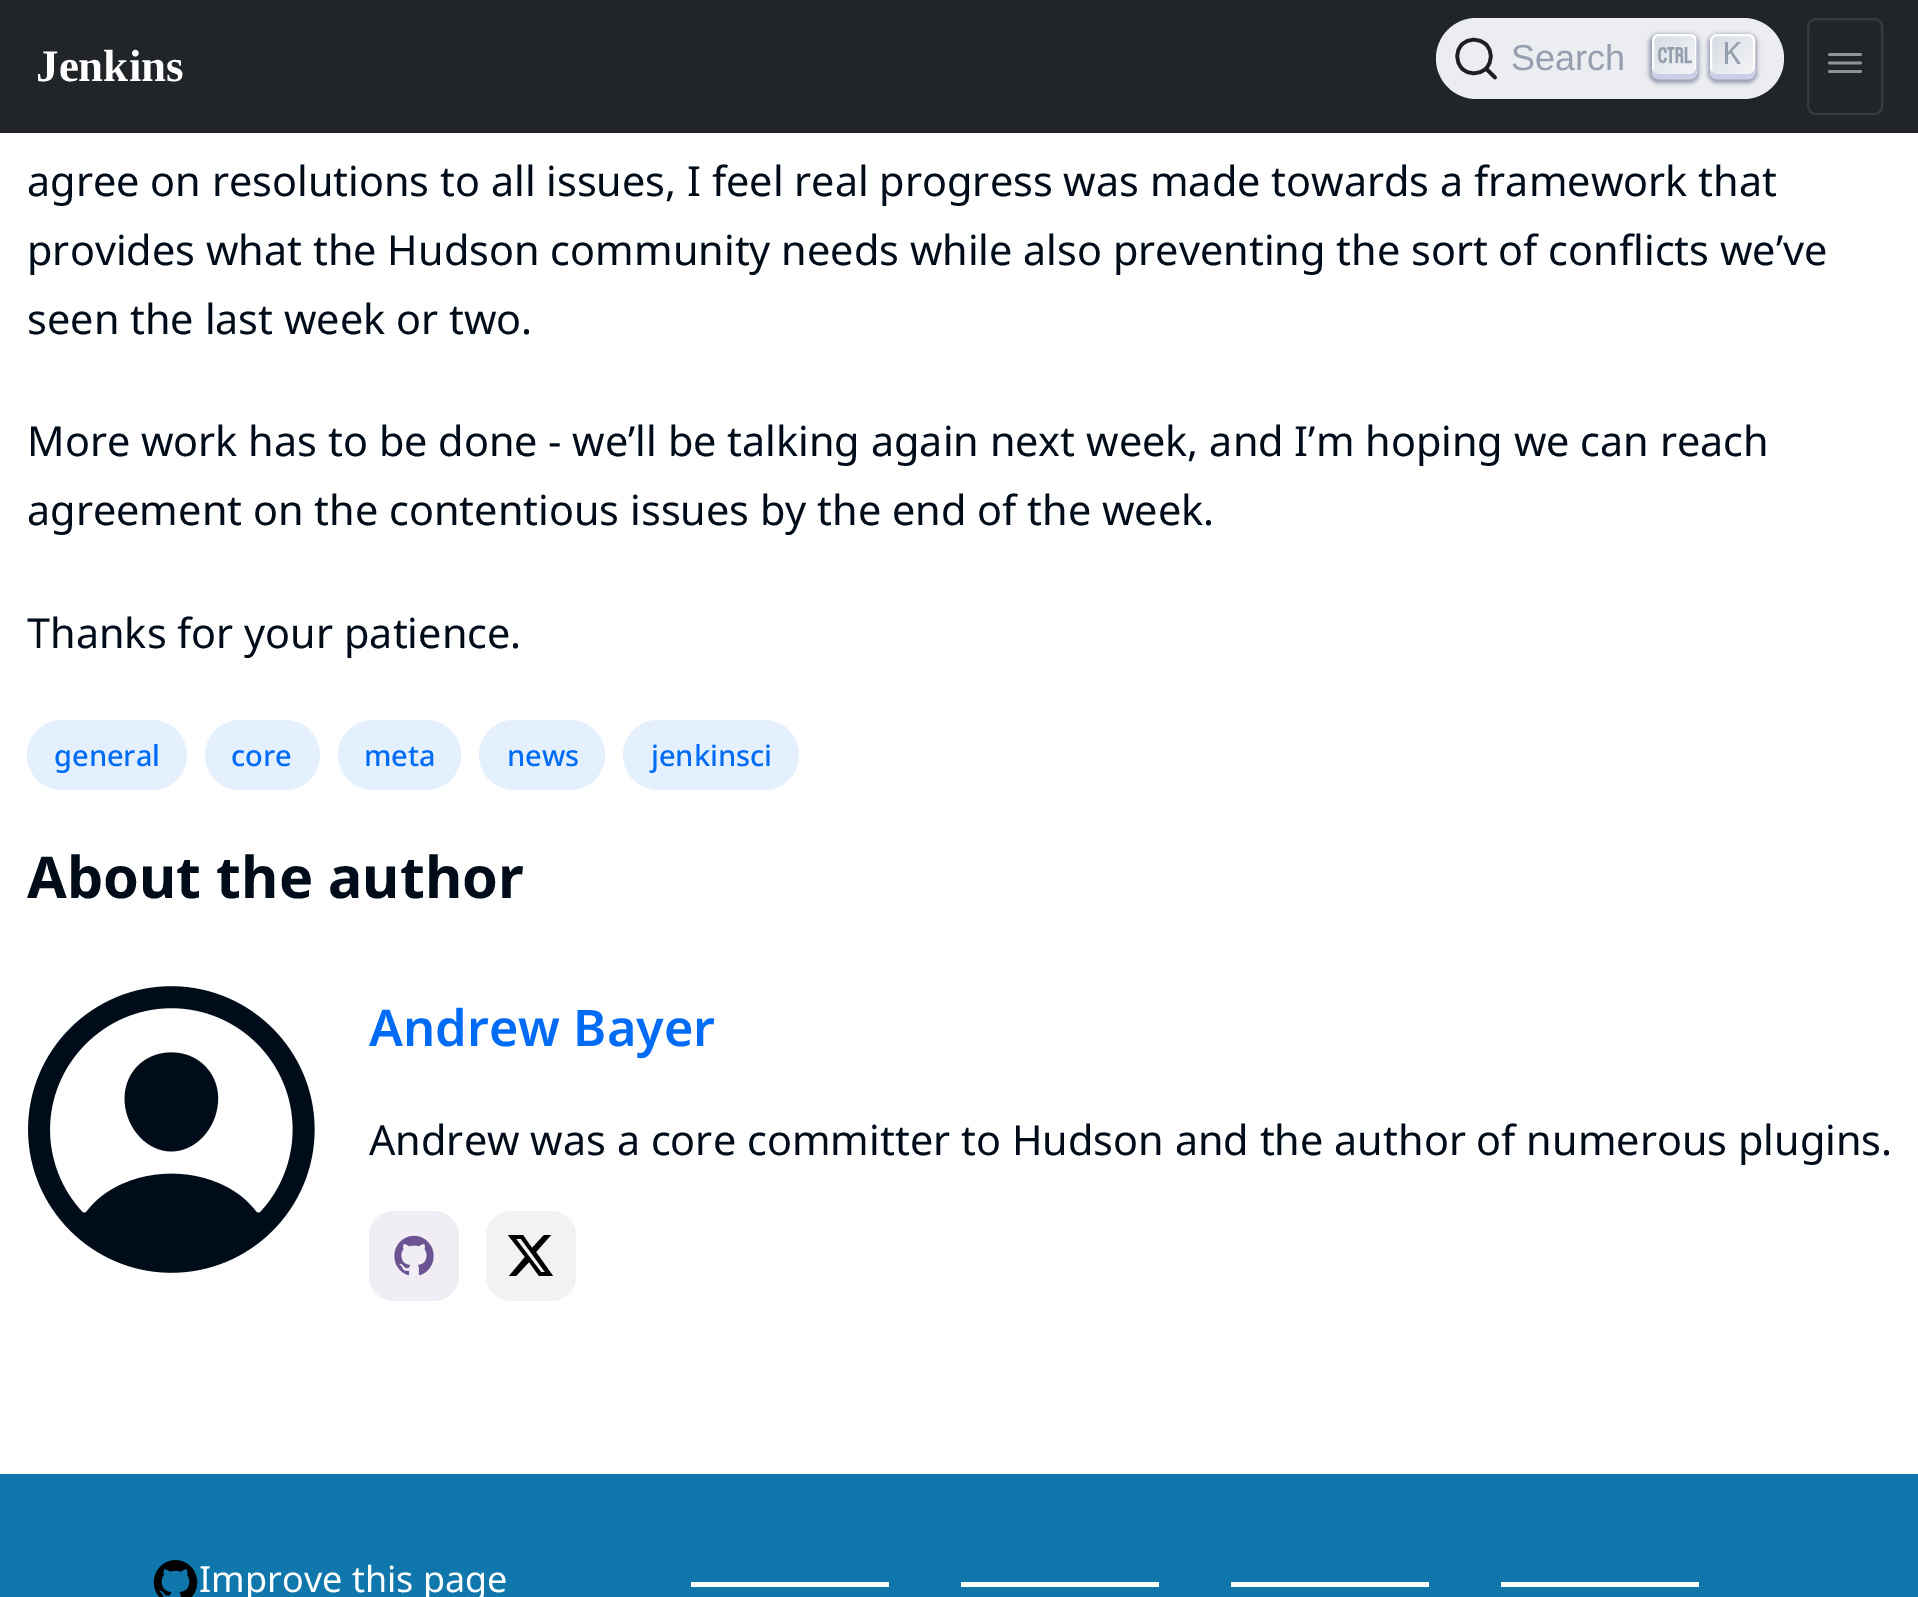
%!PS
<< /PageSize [1918 1597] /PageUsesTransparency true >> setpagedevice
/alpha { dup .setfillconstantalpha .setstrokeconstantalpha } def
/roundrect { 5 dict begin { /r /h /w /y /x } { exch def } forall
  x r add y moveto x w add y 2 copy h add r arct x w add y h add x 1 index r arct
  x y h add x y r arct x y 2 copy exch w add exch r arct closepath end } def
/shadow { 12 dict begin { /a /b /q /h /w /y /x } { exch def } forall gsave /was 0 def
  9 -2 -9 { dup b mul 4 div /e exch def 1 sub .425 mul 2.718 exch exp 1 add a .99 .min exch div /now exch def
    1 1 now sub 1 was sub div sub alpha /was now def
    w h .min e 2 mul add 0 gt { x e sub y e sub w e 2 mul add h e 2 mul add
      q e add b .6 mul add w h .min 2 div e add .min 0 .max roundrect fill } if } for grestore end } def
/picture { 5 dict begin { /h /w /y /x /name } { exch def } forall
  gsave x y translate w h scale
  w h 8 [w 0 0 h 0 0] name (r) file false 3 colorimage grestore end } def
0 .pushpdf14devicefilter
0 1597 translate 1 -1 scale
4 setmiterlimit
1 setgray
0 0 1918 1597 rectfill
0.129 0.145 0.161 setrgbcolor
0 0 1918 133 rectfill
/LiberationSerif-Bold [45 0 0 -45 0 0] selectfont
1 setgray
36 81 moveto (Jenkins) show
0.922 0.929 0.941 setrgbcolor
1436 18 348 81 40.5 roundrect fill
0.11 0.118 0.129 setrgbcolor
3.6 setlinewidth
1 setlinecap
1 setlinejoin
newpath 1486 68.5 moveto 1495 77.5 lineto 1486 68.5 lineto 1479 75 1468.5 75 1462 68.5 curveto 1455.5 61.5 1455.5 51 1462 44.5 curveto 1468.5 38 1479 38 1486 44.5 curveto 1492.5 51 1492.5 61.5 1486 68.5 curveto closepath stroke
/LiberationSans-Regular [36 0 0 -36 0 0] selectfont
0.588 0.624 0.686 setrgbcolor
1511 70 moveto (Search) show
0.118 0.137 0.353 setrgbcolor
1649 34 50 49 9 2 0.4 shadow
gsave 1653 35 43 43 6 roundrect clip newpath
<< /ShadingType 2 /ColorSpace /DeviceRGB /Coords [1652 34 1697 79] /Extend [true true] /Function << /FunctionType 2 /Domain [0 1] /C0 [0.835 0.859 0.894] /C1 [0.973 0.973 0.973] /N 1 >> >> shfill grestore
1 setgray
2 setlinewidth
0 setlinecap
0 setlinejoin
1653 35 43 43 6 roundrect stroke
0.804 0.804 0.902 setrgbcolor
newpath 1652 68 moveto 1652 78 1654 79 1664 79 curveto 1674 79 lineto 1699 79 1697 81 1697 56 curveto 1697 46 lineto 1697 43 1698 40 1696 37 curveto 1696 68 lineto 1696 71 1693 74 1690 74 curveto 1658 74 lineto 1655 74 1652 71 1652 68 curveto closepath fill
(img1.rgb) 1658 47 34 17 picture
0.118 0.137 0.353 setrgbcolor
1708 34 49 49 9 2 0.4 shadow
gsave 1711 35 43 43 6 roundrect clip newpath
<< /ShadingType 2 /ColorSpace /DeviceRGB /Coords [1710 34 1755 79] /Extend [true true] /Function << /FunctionType 2 /Domain [0 1] /C0 [0.835 0.859 0.894] /C1 [0.973 0.973 0.973] /N 1 >> >> shfill grestore
1 setgray
1711 35 43 43 6 roundrect stroke
0.804 0.804 0.902 setrgbcolor
newpath 1710 68 moveto 1710 78 1712 79 1722 79 curveto 1743 79 lineto 1753 79 1755 78 1755 68 curveto 1755 71 1752 74 1748 74 curveto 1717 74 lineto 1713 74 1710 71 1710 68 curveto closepath fill
/DejaVuSansMono-Regular [30 0 0 -30 0 0] selectfont
0.588 0.624 0.686 setrgbcolor
1723 64 moveto (K) show
0.216 0.231 0.243 setrgbcolor
1808 19 74 95 8 roundrect stroke
0.565 0.573 0.58 setrgbcolor
2.8 setlinewidth
1 setlinecap
newpath 1829.5 54.5 moveto 1860.5 54.5 lineto 1829.5 63 moveto 1860.5 63 lineto 1829.5 71.5 moveto 1860.5 71.5 lineto stroke
/NotoSans-Regular [41.4 0 0 -41.4 0 0] selectfont
0 0.047 0.102 setrgbcolor
27 196 moveto (agree on resolutions to all issues, I feel real progress was made towards a framework that) show
27 265 moveto (provides what the Hudson community needs while also preventing the sort of conflicts we’ve) show
27 334 moveto (seen the last week or two.) show
27 456 moveto (More work has to be done - we’ll be talking again next week, and I’m hoping we can reach) show
27 525 moveto (agreement on the contentious issues by the end of the week.) show
27 648 moveto (Thanks for your patience.) show
0.1 alpha
0 0.424 0.965 setrgbcolor
27 720 160 70 35 roundrect fill
/NotoSans-Medium [29 0 0 -29 0 0] selectfont
1 alpha
54 766 moveto (general) show
0.1 alpha
205 720 115 70 35 roundrect fill
1 alpha
231 766 moveto (core) show
0.1 alpha
338 720 123 70 35 roundrect fill
1 alpha
364 766 moveto (meta) show
0.1 alpha
479 720 126 70 35 roundrect fill
1 alpha
507 766 moveto (news) show
0.1 alpha
623 720 176 70 35 roundrect fill
1 alpha
651 766 moveto (jenkinsci) show
/NotoSans-Bold [57.5 0 0 -57.5 0 0] selectfont
0 0.047 0.102 setrgbcolor
27 898 moveto (About the author) show
(img2.rgb) 28 986 287 287 picture
/NotoSans-SemiBold [50.5 0 0 -50.5 0 0] selectfont
0 0.424 0.965 setrgbcolor
369 1046 moveto (Andrew Bayer) show
/NotoSans-Regular [41.4 0 0 -41.4 0 0] selectfont
0 0.047 0.102 setrgbcolor
369 1155 moveto (Andrew was a core committer to Hudson and the author of numerous plugins.) show
0.941 0.933 0.957 setrgbcolor
369 1211 90 90 25 roundrect fill
(img3.rgb) 394 1235 40 41 picture
0.949 setgray
486 1211 90 90 25 roundrect fill
0 setgray
newpath 544 1235 moveto 551 1235 lineto 536 1252 lineto 553 1276 lineto 539 1276 lineto 529 1262 lineto 516 1276 lineto 509 1276 lineto 525 1257 lineto 508 1235 lineto 523 1235 lineto 532 1248 lineto closepath 541 1272 moveto 545 1272 lineto 521 1239 lineto 516 1239 lineto closepath fill
0.063 0.467 0.678 setrgbcolor
0 1474 1918 123 rectfill
(img4.rgb) 153 1560 45 37 picture
/NotoSans-Regular [36 0 0 -36 0 0] selectfont
1 setgray
199 1592 moveto (Improve this page) show
691 1582 198 5 rectfill
961 1582 198 5 rectfill
1231 1582 198 5 rectfill
1501 1582 198 5 rectfill
.poppdf14devicefilter showpage
